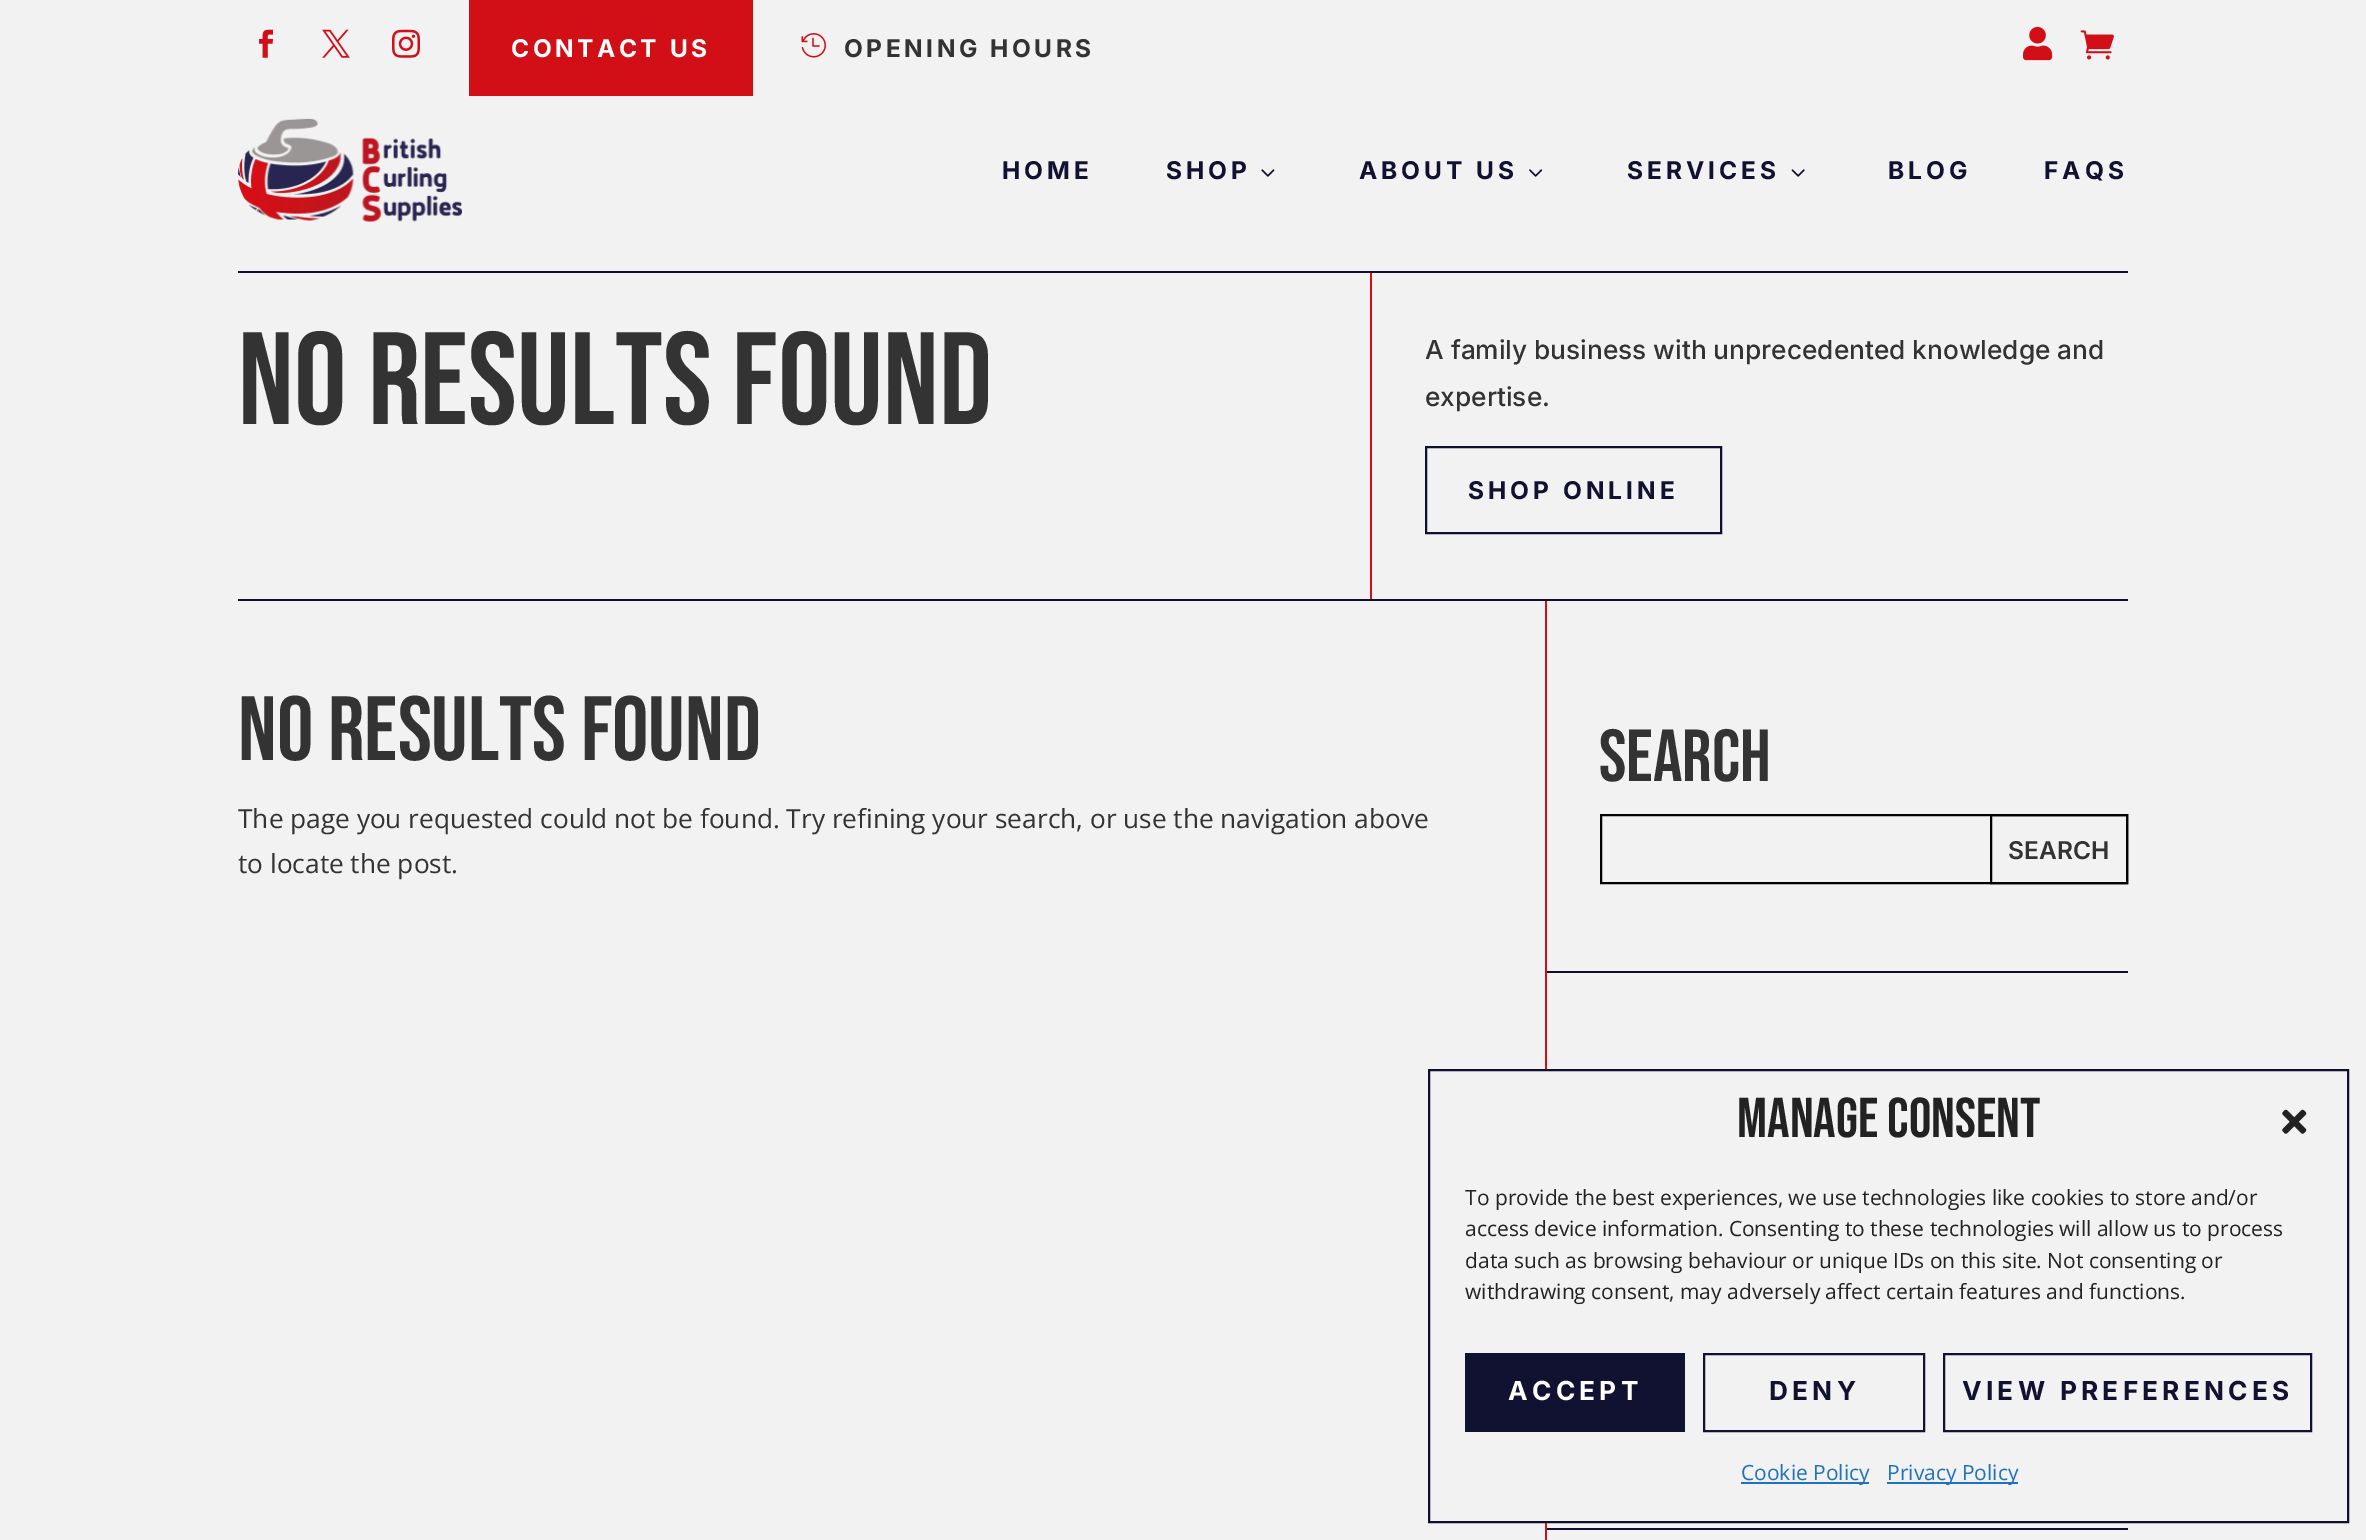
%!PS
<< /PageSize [2366 1540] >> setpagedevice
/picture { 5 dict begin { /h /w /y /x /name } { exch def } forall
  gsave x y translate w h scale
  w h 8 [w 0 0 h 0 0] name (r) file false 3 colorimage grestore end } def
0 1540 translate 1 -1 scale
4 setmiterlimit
0.949 setgray
0 0 2366 1540 rectfill
(img1.rgb) 259 29 15 29 picture
(img2.rgb) 322 29 28 29 picture
(img3.rgb) 392 29 28 29 picture
0.824 0.059 0.086 setrgbcolor
469 0 284 96 rectfill
/Inter-Bold [24.5 0 0 -24.5 0 0] selectfont
1 setgray
511 57 moveto 3.5 0 (CONTACT US) ashow
(img4.rgb) 801 33 25 25 picture
0.2 setgray
844 57 moveto 3.5 0 (OPENING HOURS) ashow
(img5.rgb) 2023 26 30 35 picture
(img6.rgb) 2080 30 34 30 picture
(img7.rgb) 238 118 224 104 picture
0.067 0.067 0.196 setrgbcolor
1002 179 moveto 4 0 (HOME) ashow
1166 179 moveto 4 0 (SHOP) ashow
(img8.rgb) 1261 169 14 8 picture
1359 179 moveto 4 0 (ABOUT US) ashow
(img9.rgb) 1529 169 14 8 picture
1627 179 moveto 4 0 (SERVICES) ashow
(img10.rgb) 1791 169 14 8 picture
1888 179 moveto 4 0 (BLOG) ashow
2044 179 moveto 4 0 (FAQS) ashow
0.059 0.059 0.188 setrgbcolor
238 271 1890 2 rectfill
0.824 0.059 0.086 setrgbcolor
1545 600 2 940 rectfill
0.059 0.059 0.188 setrgbcolor
238 599 1890 2 rectfill
0.824 0.059 0.086 setrgbcolor
1370 273 2 326 rectfill
/BebasNeue-Regular [131.25 0 0 -131.25 0 0] selectfont
0.2 setgray
238 424 moveto (NO RESULTS FOUND) show
/Inter-Medium [26.25 0 0 -26.25 0 0] selectfont
1425 359 moveto (A family business with unprecedented knowledge and) show
1425 406 moveto (expertise.) show
0.059 0.059 0.188 setrgbcolor
2 setlinewidth
1426 447 295 86 rectstroke
/Inter-Bold [24.5 0 0 -24.5 0 0] selectfont
0.067 0.067 0.196 setrgbcolor
1468 499 moveto 4 0 (SHOP ONLINE) ashow
/BebasNeue-Regular [91 0 0 -91 0 0] selectfont
0.2 setgray
238 760 moveto (NO RESULTS FOUND) show
/OpenSans-Regular [26.25 0 0 -26.25 0 0] selectfont
238 828 moveto (The page you requested could not be found. Try refining your search, or use the navigation above) show
238 873 moveto (to locate the post.) show
0.059 0.059 0.188 setrgbcolor
1547 971 581 2 rectfill
/BebasNeue-Regular [73.5 0 0 -73.5 0 0] selectfont
0.2 setgray
1599 781 moveto (SEARCH) show
0.008 setgray
1601 815 526 68 rectstroke
1991 815 136 68 rectstroke
/Inter-SemiBold [24.5 0 0 -24.5 0 0] selectfont
0.2 setgray
2008 859 moveto (SEARCH) show
0.059 0.059 0.188 setrgbcolor
1547 1528 581 2 rectfill
0.949 setgray
1545 1071 2 450 rectfill
0.059 0.059 0.188 setrgbcolor
1429 1070 919 452 rectstroke
/BebasNeue-Regular [56 0 0 -56 0 0] selectfont
0.133 setgray
1737 1137 moveto (Manage Consent) show
(img11.rgb) 2282 1109 25 25 picture
/OpenSans-Regular [21 0 0 -21 0 0] selectfont
1465 1205 moveto (To provide the best experiences, we use technologies like cookies to store and/or) show
1465 1236 moveto (access device information. Consenting to these technologies will allow us to process) show
1465 1268 moveto (data such as browsing behaviour or unique IDs on this site. Not consenting or) show
1465 1299 moveto (withdrawing consent, may adversely affect certain features and functions.) show
0.067 0.067 0.196 setrgbcolor
1465 1353 220 79 rectfill
/Inter-Bold [26.25 0 0 -26.25 0 0] selectfont
1 setgray
1508 1400 moveto 4.25 0 (ACCEPT) ashow
0.067 0.067 0.196 setrgbcolor
1704 1354 220 77 rectstroke
1769 1400 moveto 4.25 0 (DENY) ashow
1944 1354 367 77 rectstroke
1962 1400 moveto 4.25 0 (VIEW PREFERENCES) ashow
0.118 0.451 0.745 setrgbcolor
1741 1482 128 2 rectfill
/OpenSans-Regular [21 0 0 -21 0 0] selectfont
1741 1480 moveto (Cookie Policy) show
1887 1482 131 2 rectfill
1887 1480 moveto (Privacy Policy) show
showpage
